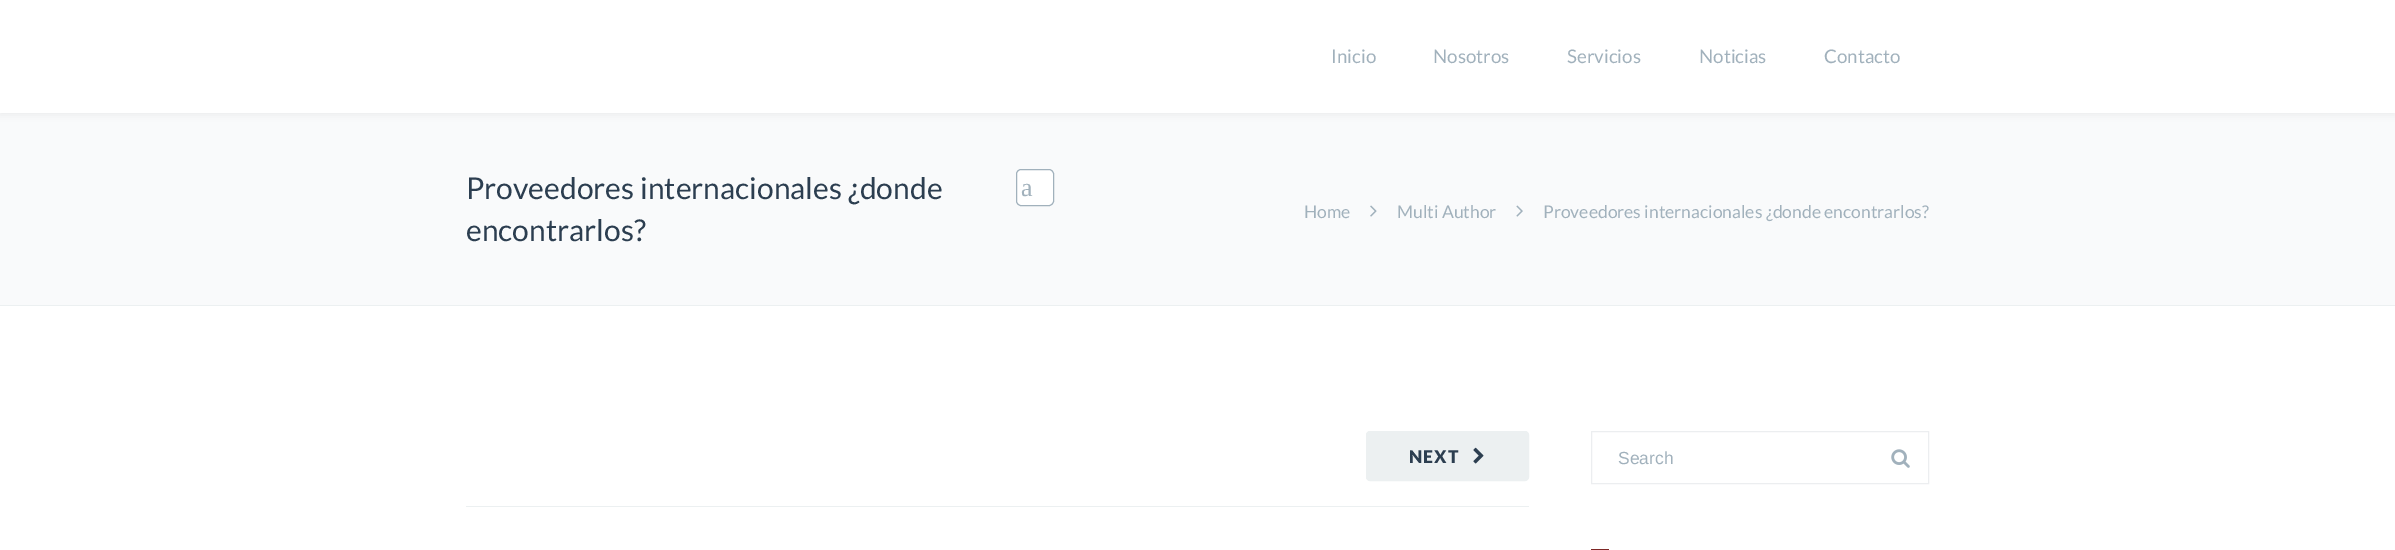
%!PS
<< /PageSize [2395 550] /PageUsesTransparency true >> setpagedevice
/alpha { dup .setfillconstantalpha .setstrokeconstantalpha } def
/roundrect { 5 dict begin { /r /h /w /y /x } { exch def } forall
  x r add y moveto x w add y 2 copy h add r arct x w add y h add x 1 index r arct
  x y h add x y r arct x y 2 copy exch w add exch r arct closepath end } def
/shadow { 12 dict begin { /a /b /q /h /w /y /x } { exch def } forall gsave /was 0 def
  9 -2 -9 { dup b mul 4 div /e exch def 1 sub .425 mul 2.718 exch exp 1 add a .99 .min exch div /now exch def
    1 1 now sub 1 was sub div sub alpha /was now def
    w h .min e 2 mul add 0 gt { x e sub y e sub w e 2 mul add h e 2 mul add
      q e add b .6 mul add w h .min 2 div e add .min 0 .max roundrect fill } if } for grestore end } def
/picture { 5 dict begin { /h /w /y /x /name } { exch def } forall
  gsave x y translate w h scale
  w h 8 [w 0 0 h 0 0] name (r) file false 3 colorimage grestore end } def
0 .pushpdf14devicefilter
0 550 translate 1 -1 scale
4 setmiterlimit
1 setgray
0 0 2395 550 rectfill
0.976 0.98 0.984 setrgbcolor
0 113 2395 192 rectfill
0 setgray
0 3 2395 112 0 4 0.05 shadow
1 setgray
0 0 2395 113 rectfill
/Lato-Regular [18.75 0 0 -18.75 0 0] selectfont
0.631 0.694 0.737 setrgbcolor
1331 63 moveto (Inicio) show
1433 63 moveto (Nosotros) show
1567 63 moveto (Servicios) show
1699 63 moveto (Noticias) show
1824 63 moveto (Contacto) show
0.925 0.941 0.945 setrgbcolor
0 305 2395 1 rectfill
/Lato-Regular [30 0 0 -30 0 0] selectfont
0.173 0.243 0.314 setrgbcolor
466 199 moveto (Proveedores internacionales ¿donde) show
466 241 moveto (encontrarlos?) show
1 setgray
1016.5 169.5 37 36 4.5 roundrect gsave fill grestore
0.631 0.694 0.737 setrgbcolor
stroke
/LiberationSerif-Regular [26 0 0 -26 0 0] selectfont
1021 196 moveto (a) show
/Lato-Regular [17.5 0 0 -17.5 0 0] selectfont
1304 218 moveto (Home) show
(img1.rgb) 1370 205 7 12 picture
1397 218 moveto (Multi Author) show
(img2.rgb) 1516 205 7 12 picture
1543 218 moveto (Proveedores internacionales ¿donde encontrarlos?) show
0.925 0.941 0.945 setrgbcolor
466 506 1063 1 rectfill
1366.5 431.5 162 49 3.5 roundrect gsave fill grestore
stroke
/Lato-Black [17.5 0 0 -17.5 0 0] selectfont
0.173 0.243 0.314 setrgbcolor
1409 463 moveto 1 0 (NEXT) ashow
(img3.rgb) 1473 447 11 17 picture
0.925 0.933 0.941 setrgbcolor
1591.5 431.5 337 52 rectstroke
/LiberationSans-Regular [17.5 0 0 -17.5 0 0] selectfont
0.631 0.694 0.737 setrgbcolor
1618 464 moveto (Search) show
(img4.rgb) 1891 449 19 19 picture
0.494 0.153 0.149 setrgbcolor
1591 549 18 1 rectfill
.poppdf14devicefilter showpage
